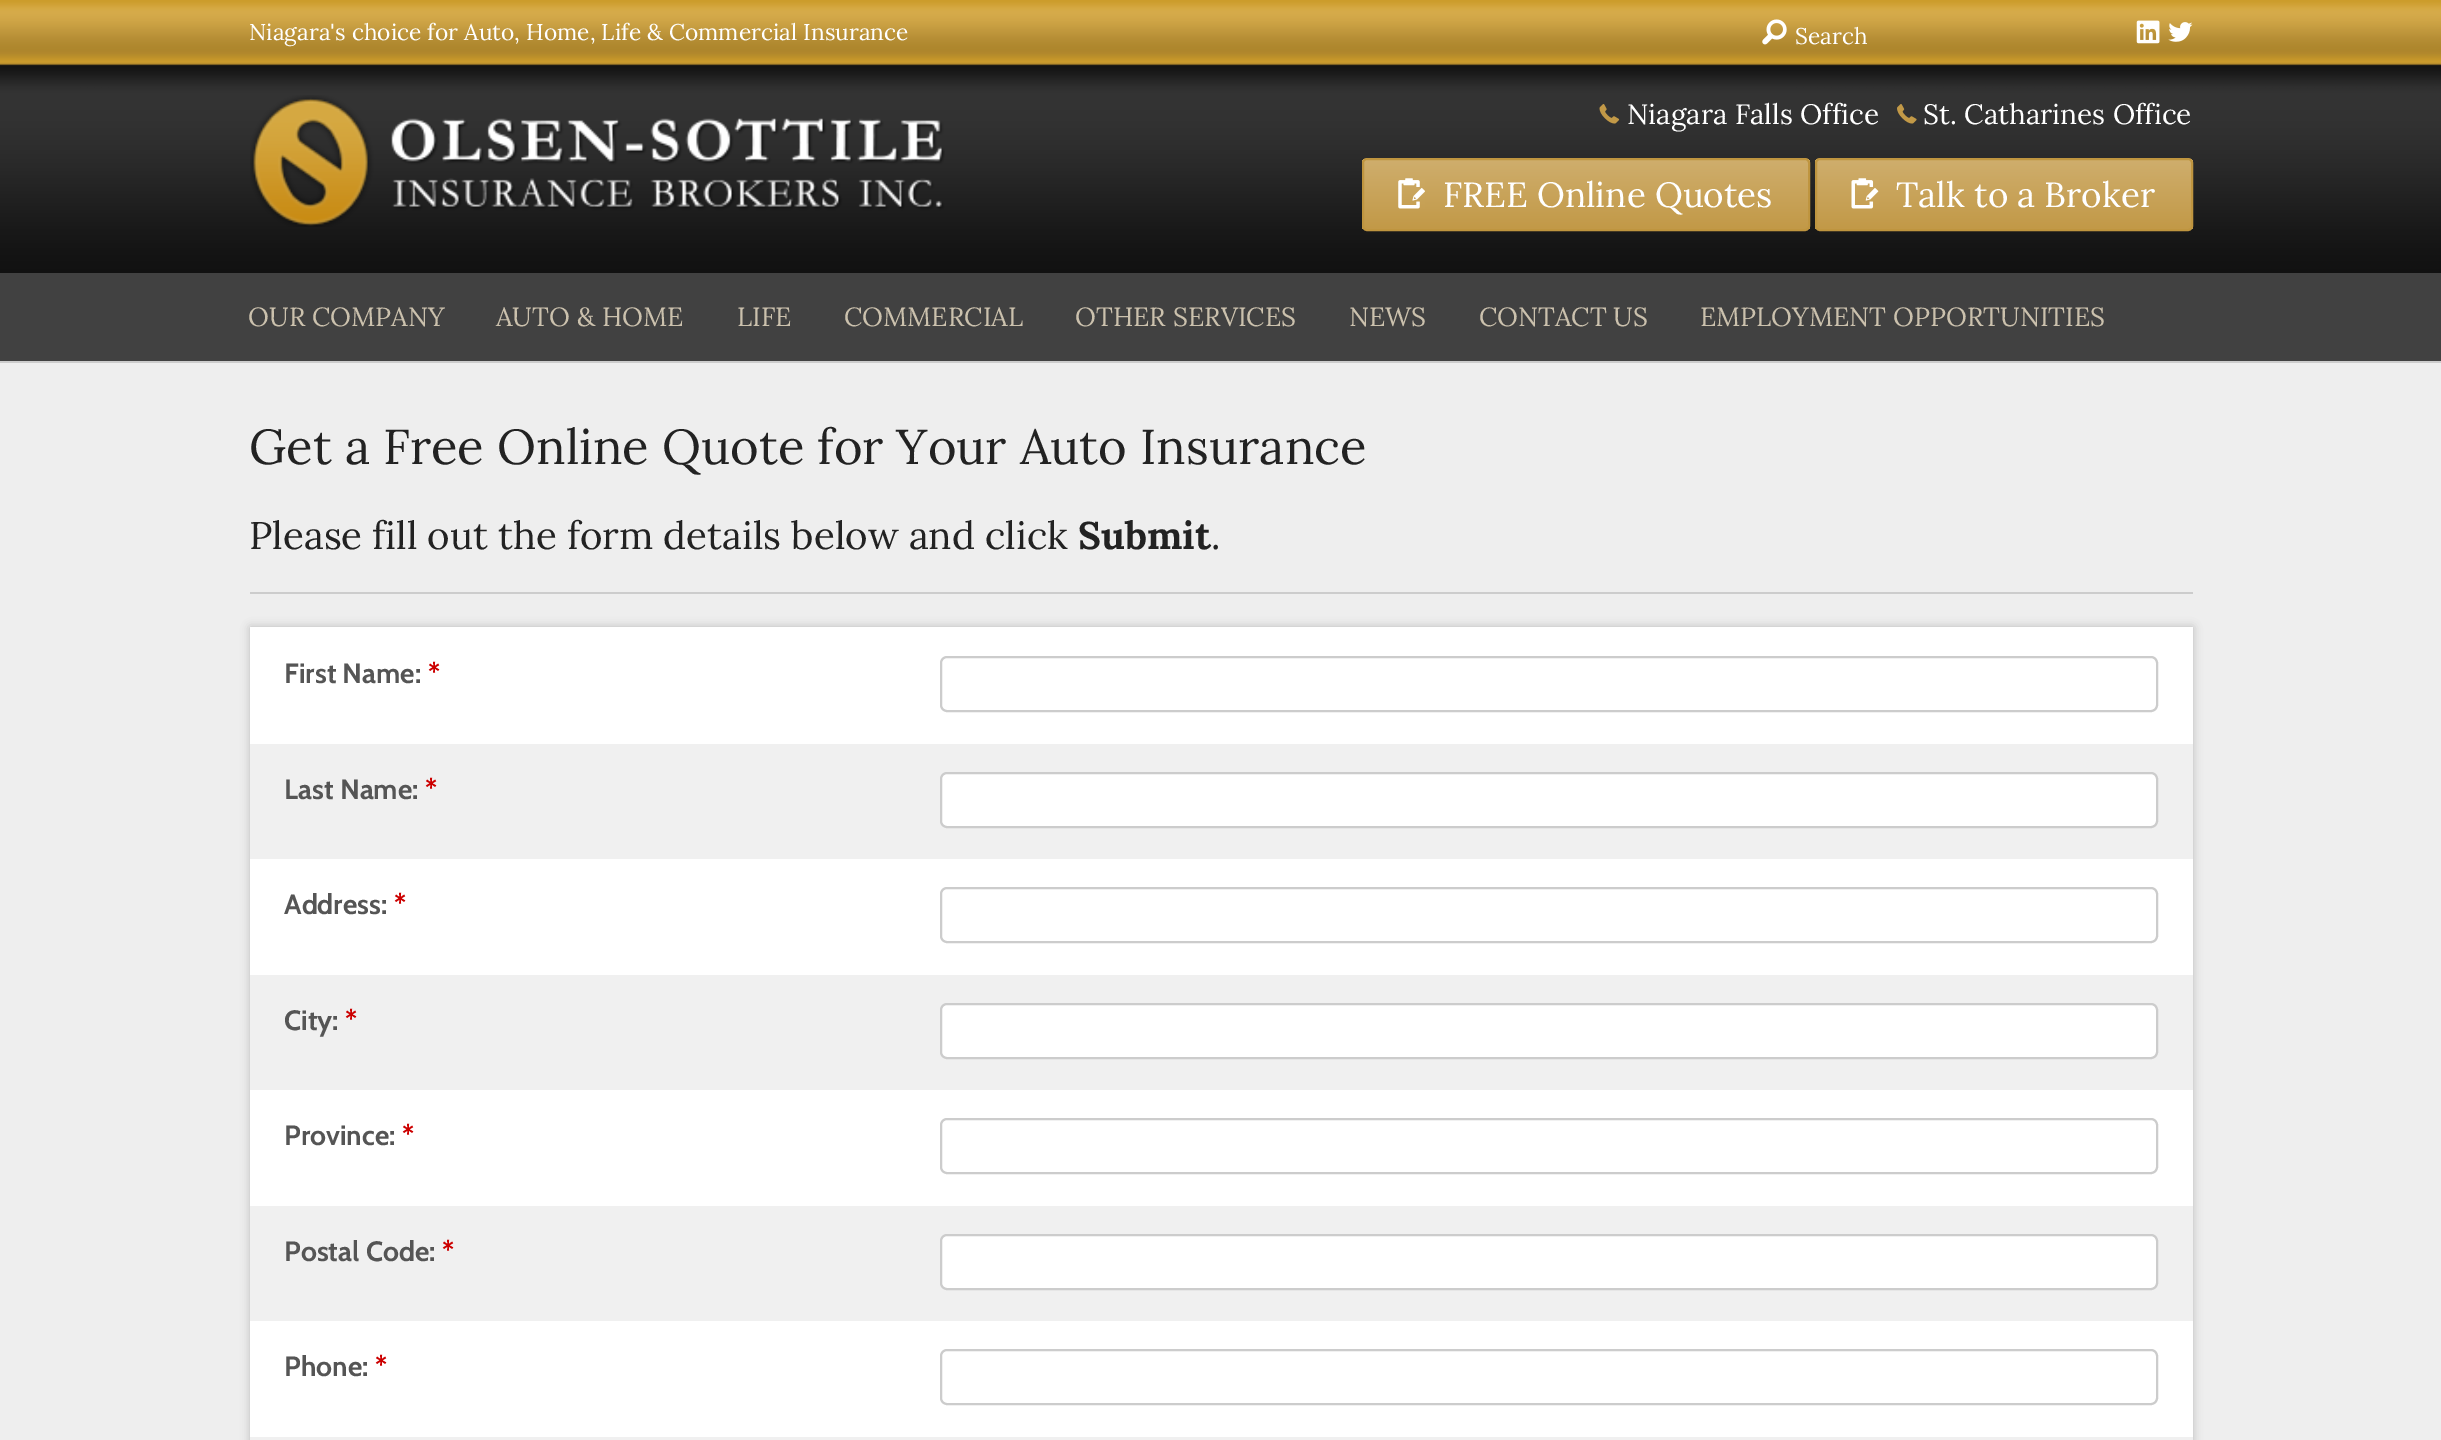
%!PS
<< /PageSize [2441 1440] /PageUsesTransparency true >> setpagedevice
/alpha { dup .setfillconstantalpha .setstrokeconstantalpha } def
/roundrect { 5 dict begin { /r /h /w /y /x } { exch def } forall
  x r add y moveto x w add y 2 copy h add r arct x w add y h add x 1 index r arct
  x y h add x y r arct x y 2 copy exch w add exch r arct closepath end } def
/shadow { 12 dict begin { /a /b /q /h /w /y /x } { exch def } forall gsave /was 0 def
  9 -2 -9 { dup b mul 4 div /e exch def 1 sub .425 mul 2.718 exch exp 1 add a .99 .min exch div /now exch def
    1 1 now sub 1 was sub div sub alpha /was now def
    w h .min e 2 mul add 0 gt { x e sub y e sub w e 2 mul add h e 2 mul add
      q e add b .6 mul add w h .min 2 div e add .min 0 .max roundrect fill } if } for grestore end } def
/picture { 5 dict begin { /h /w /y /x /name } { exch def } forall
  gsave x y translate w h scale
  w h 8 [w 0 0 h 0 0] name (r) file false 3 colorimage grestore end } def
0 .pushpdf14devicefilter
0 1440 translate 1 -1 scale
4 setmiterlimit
1 setgray
0 0 2441 1440 rectfill
(img4.rgb) 0 0 2441 273 picture
/Lora-Regular [22.75 0 0 -22.75 0 0] selectfont
249 40 moveto (Niagara's choice for Auto, Home, Life & Commercial Insurance) show
(img1.rgb) 1762 19 25 26 picture
1795 44 moveto (Search) show
(img2.rgb) 2136 20 24 24 picture
(img3.rgb) 2168 22 25 20 picture
(img5.rgb) 250 95 695 132 picture
(img6.rgb) 1599 104 21 20 picture
/Lora-Regular [28 0 0 -28 0 0] selectfont
1627 124 moveto (Niagara Falls Office) show
(img7.rgb) 1897 104 20 20 picture
1923 124 moveto (St. Catharines Office) show
gsave
1362 158 448 73 5 roundrect clip newpath
gsave newpath 1362 159 moveto 1810 159 lineto 1810 229 lineto 1362 229 lineto closepath clip newpath
<< /ShadingType 2 /ColorSpace /DeviceRGB /Coords [1586 159 1586 229] /Extend [true true] /Function << /FunctionType 2 /Domain [0 1] /C0 [0.812 0.682 0.427] /C1 [0.761 0.6 0.278] /N 1 >> >> shfill grestore
grestore
0.749 0.584 0.247 setrgbcolor
2 setlinewidth
1363 159 446 71 4 roundrect stroke
(img8.rgb) 1398 178 27 31 picture
/Lora-Regular [35 0 0 -35 0 0] selectfont
1 setgray
1443 207 moveto (FREE Online Quotes) show
gsave
1815 158 378 73 5 roundrect clip newpath
gsave newpath 1815 159 moveto 2193 159 lineto 2193 229 lineto 1815 229 lineto closepath clip newpath
<< /ShadingType 2 /ColorSpace /DeviceRGB /Coords [2004 159 2004 229] /Extend [true true] /Function << /FunctionType 2 /Domain [0 1] /C0 [0.812 0.682 0.427] /C1 [0.761 0.6 0.278] /N 1 >> >> shfill grestore
grestore
0.749 0.584 0.247 setrgbcolor
1816 159 376 71 4 roundrect stroke
(img9.rgb) 1851 178 28 31 picture
1 setgray
1896 207 moveto (Talk to a Broker) show
0.255 setgray
0 273 2441 88 rectfill
/Lora-Regular [26.25 0 0 -26.25 0 0] selectfont
0.796 0.757 0.678 setrgbcolor
248 326 moveto (OUR COMPANY) show
496 326 moveto (AUTO & HOME) show
737 326 moveto (LIFE) show
844 326 moveto (COMMERCIAL) show
1075 326 moveto (OTHER SERVICES) show
1349 326 moveto (NEWS) show
1479 326 moveto (CONTACT US) show
1700 326 moveto (EMPLOYMENT OPPORTUNITIES) show
0.933 setgray
0 363 2441 1077 rectfill
0.8 setgray
0 361 2441 2 rectfill
/Lora-Regular [49 0 0 -49 0 0] selectfont
0.133 setgray
249 464 moveto (Get a Free Online Quote for Your Auto Insurance) show
/Lora-Regular [38.5 0 0 -38.5 0 0] selectfont
249 549 moveto (Please fill out the form details below and click) show
/Lora-Bold [38.5 0 0 -38.5 0 0] selectfont
1078 549 moveto (Submit) show
/Lora-Regular [38.5 0 0 -38.5 0 0] selectfont
1211 549 moveto (.) show
0.8 setgray
250 592 1943 2 rectfill
0 setgray
250 627 1943 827 0 4.5 0.2 shadow
1 setgray
250 627 1943 810 rectfill
/Cabin-Bold [28 0 0 -28 0 0] selectfont
0.333 setgray
284 683 moveto (First Name:) show
0.8 0 0 setrgbcolor
428 683 moveto (*) show
0.8 setgray
941 657 1216 54 6 roundrect stroke
0.941 setgray
250 744 1943 115 rectfill
0.333 setgray
284 799 moveto (Last Name:) show
0.8 0 0 setrgbcolor
425 799 moveto (*) show
1 setgray
941 773 1216 54 6 roundrect gsave fill grestore
0.8 setgray
stroke
0.333 setgray
284 914 moveto (Address:) show
0.8 0 0 setrgbcolor
394 914 moveto (*) show
0.8 setgray
941 888 1216 54 6 roundrect stroke
0.941 setgray
250 975 1943 115 rectfill
0.333 setgray
284 1030 moveto (City:) show
0.8 0 0 setrgbcolor
345 1030 moveto (*) show
1 setgray
941 1004 1216 54 6 roundrect gsave fill grestore
0.8 setgray
stroke
0.333 setgray
284 1145 moveto (Province:) show
0.8 0 0 setrgbcolor
402 1145 moveto (*) show
0.8 setgray
941 1119 1216 54 6 roundrect stroke
0.941 setgray
250 1206 1943 115 rectfill
0.333 setgray
284 1261 moveto (Postal Code:) show
0.8 0 0 setrgbcolor
442 1261 moveto (*) show
1 setgray
941 1235 1216 54 6 roundrect gsave fill grestore
0.8 setgray
stroke
0.333 setgray
284 1376 moveto (Phone:) show
0.8 0 0 setrgbcolor
375 1376 moveto (*) show
0.8 setgray
941 1350 1216 54 6 roundrect stroke
0.941 setgray
250 1437 1943 3 rectfill
.poppdf14devicefilter showpage
